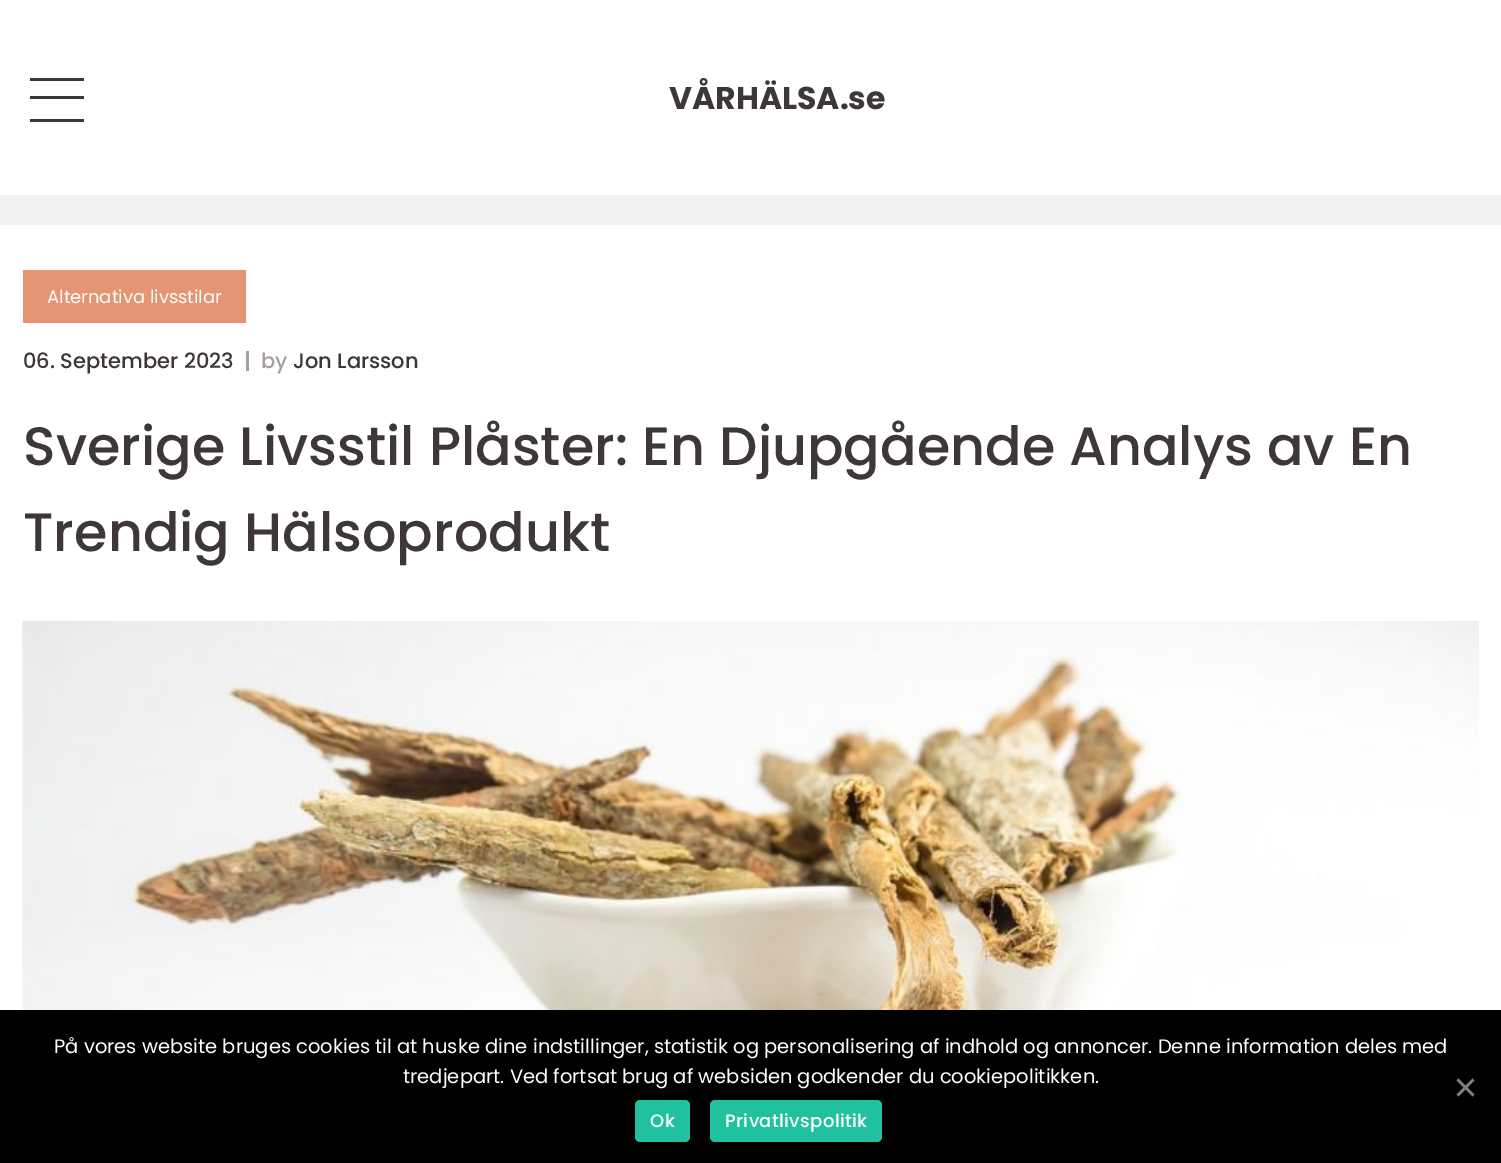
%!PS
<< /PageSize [1501 1163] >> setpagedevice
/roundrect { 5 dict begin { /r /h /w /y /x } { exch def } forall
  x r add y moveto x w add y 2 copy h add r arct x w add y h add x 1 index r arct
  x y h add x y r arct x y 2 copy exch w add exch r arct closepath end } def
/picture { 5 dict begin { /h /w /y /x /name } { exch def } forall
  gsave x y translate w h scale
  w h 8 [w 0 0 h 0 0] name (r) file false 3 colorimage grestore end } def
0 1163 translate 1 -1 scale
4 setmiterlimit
0.949 setgray
0 0 1501 1163 rectfill
1 setgray
0 0 1501 195 rectfill
0.239 0.216 0.216 setrgbcolor
30 78 54 3 rectfill
30 96 54 3 rectfill
30 119 54 3 rectfill
/Poppins-Bold [31.5 0 0 -31.5 0 0] selectfont
669 109 moveto (VÅRHÄLSA.se) show
1 setgray
0 225 1501 785 rectfill
0.898 0.58 0.455 setrgbcolor
23 270 223 53 rectfill
/Poppins-Regular [18 0 0 -18 0 0] selectfont
1 setgray
47 303 moveto (Alternativa livsstilar) show
/Poppins-Medium [21 0 0 -21 0 0] selectfont
0.239 0.216 0.216 setrgbcolor
23 368 moveto (06. September 2023) show
0.655 0.624 0.624 setrgbcolor
246 351 3 20 rectfill
261 368 moveto (by) show
0.239 0.216 0.216 setrgbcolor
293 368 moveto (Jon Larsson) show
/Poppins-Medium [54 0 0 -54 0 0] selectfont
23 465 moveto (Sverige Livsstil Plåster: En Djupgående Analys av En) show
23 551 moveto (Trendig Hälsoprodukt) show
(img1.rgb) 22 621 1457 389 picture
0 setgray
0 1010 1501 153 rectfill
/Poppins-Regular [19.5 0 0 -19.5 0 0] selectfont
1 setgray
54 1053 moveto (På vores website bruges cookies til at huske dine indstillinger, statistik og personalisering af indhold og annoncer. Denne information deles med) show
403 1083 moveto (tredjepart. Ved fortsat brug af websiden godkender du cookiepolitikken.) show
0.502 setgray
newpath 1472.5 1078.5 moveto 1474.5 1080.5 lineto 1458.5 1096.5 lineto 1456.5 1094.5 lineto closepath fill
newpath 1456.5 1080.5 moveto 1458.5 1078.5 lineto 1474.5 1094.5 lineto 1472.5 1096.5 lineto closepath fill
0.125 0.757 0.62 setrgbcolor
635 1100 55 42 5 roundrect fill
/Poppins-Medium [18 0 0 -18 0 0] selectfont
1 setgray
650 1127 moveto 0.4 0 (Ok) ashow
0.125 0.757 0.62 setrgbcolor
710 1100 172 42 5 roundrect fill
1 setgray
725 1127 moveto 0.4 0 (Privatlivspolitik) ashow
showpage
